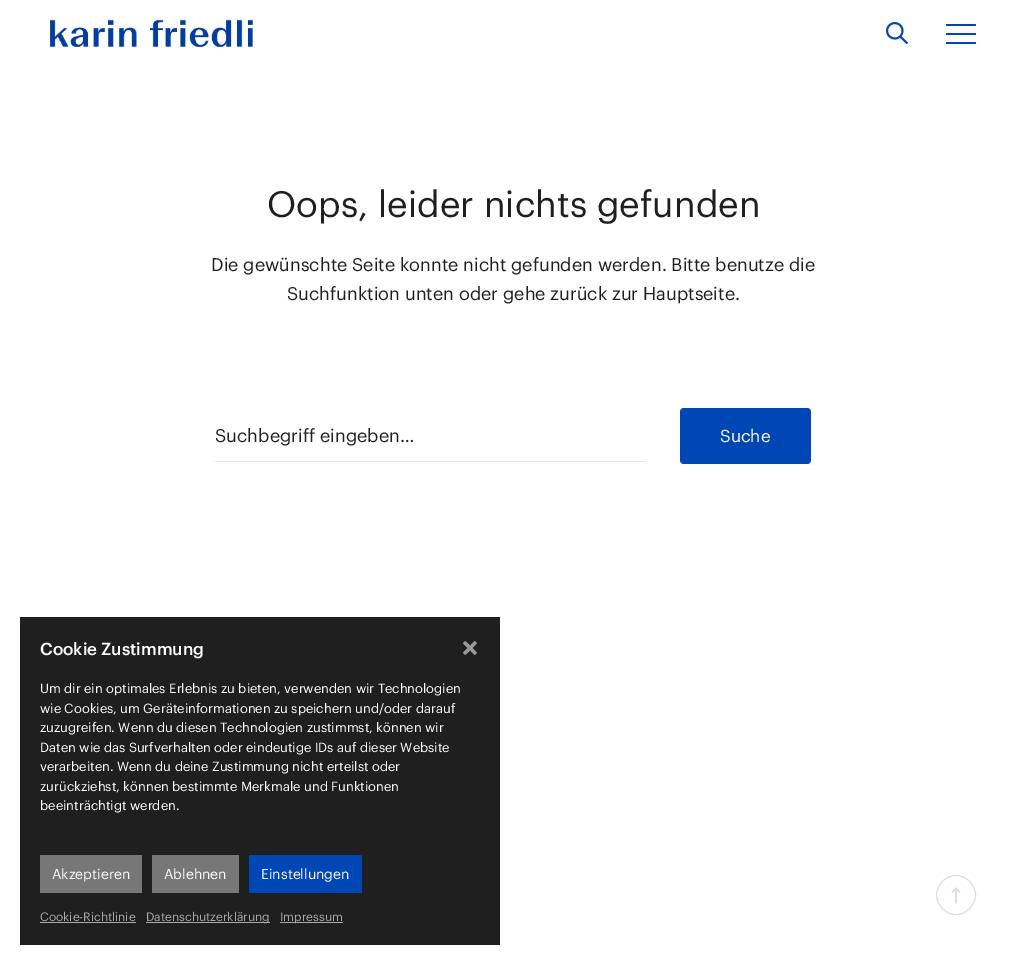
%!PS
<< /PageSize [1026 965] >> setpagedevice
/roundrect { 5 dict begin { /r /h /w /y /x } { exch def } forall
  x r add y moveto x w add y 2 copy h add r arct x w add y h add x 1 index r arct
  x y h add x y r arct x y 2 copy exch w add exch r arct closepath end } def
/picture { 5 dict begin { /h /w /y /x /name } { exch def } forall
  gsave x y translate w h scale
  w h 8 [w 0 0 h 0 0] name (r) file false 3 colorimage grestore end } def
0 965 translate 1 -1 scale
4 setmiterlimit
1 setgray
0 0 1026 965 rectfill
(img1.rgb) 50 19 203 28 picture
(img2.rgb) 886 22 22 22 picture
0.004 0.275 0.71 setrgbcolor
946 24 30 2 1 roundrect fill
946 33 30 2 1 roundrect fill
946 42 30 2 1 roundrect fill
/Graphik-Regular [36 0 0 -36 0 0] selectfont
0.122 setgray
267 217 moveto 0.1 0 (Oops, leider nichts gefunden) ashow
/Graphik-Regular [18 0 0 -18 0 0] selectfont
211 271 moveto 0.05 0 (Die gewünschte Seite konnte nicht gefunden werden. Bitte benutze die) ashow
287 300 moveto 0.05 0 (Suchfunktion unten oder gehe zurück zur Hauptseite.) ashow
0.902 setgray
215 461 431 1 rectfill
0.122 setgray
215 442 moveto 0.05 0 (Suchbegriff eingeben…) ashow
0.004 0.275 0.71 setrgbcolor
680 408 131 56 4 roundrect fill
/Graphik-Regular [17 0 0 -17 0 0] selectfont
1 setgray
720 442 moveto (Suche) show
0.122 setgray
20 617 480 328 rectfill
/Graphik-Medium [17 0 0 -17 0 0] selectfont
1 setgray
40 655 moveto (Cookie Zustimmung) show
(img3.rgb) 463 641 14 14 picture
/Graphik-Regular [13 0 0 -13 0 0] selectfont
40 693 moveto (Um dir ein optimales Erlebnis zu bieten, verwenden wir Technologien) show
40 713 moveto (wie Cookies, um Geräteinformationen zu speichern und/oder darauf) show
40 732 moveto (zuzugreifen. Wenn du diesen Technologien zustimmst, können wir) show
40 752 moveto (Daten wie das Surfverhalten oder eindeutige IDs auf dieser Website) show
40 771 moveto (verarbeiten. Wenn du deine Zustimmung nicht erteilst oder) show
40 791 moveto (zurückziehst, können bestimmte Merkmale und Funktionen) show
40 810 moveto (beeinträchtigt werden.) show
0.467 setgray
40 855 102 38 rectfill
/Graphik-Regular [14 0 0 -14 0 0] selectfont
1 setgray
52 879 moveto (Akzeptieren) show
0.467 setgray
152 855 87 38 rectfill
1 setgray
164 879 moveto (Ablehnen) show
0.004 0.275 0.71 setrgbcolor
249 855 113 38 rectfill
1 setgray
261 879 moveto (Einstellungen) show
/Graphik-Regular [12 0 0 -12 0 0] selectfont
0.667 setgray
40 921 moveto (Cookie-Richtlinie) show
40 922 96 1 rectfill
146 922 124 1 rectfill
146 921 moveto (Datenschutzerklärung) show
280 922 63 1 rectfill
280 921 moveto (Impressum) show
0.871 setgray
newpath 956 895 19.5 0 360 arc closepath stroke
(img4.rgb) 951 887 10 17 picture
showpage
